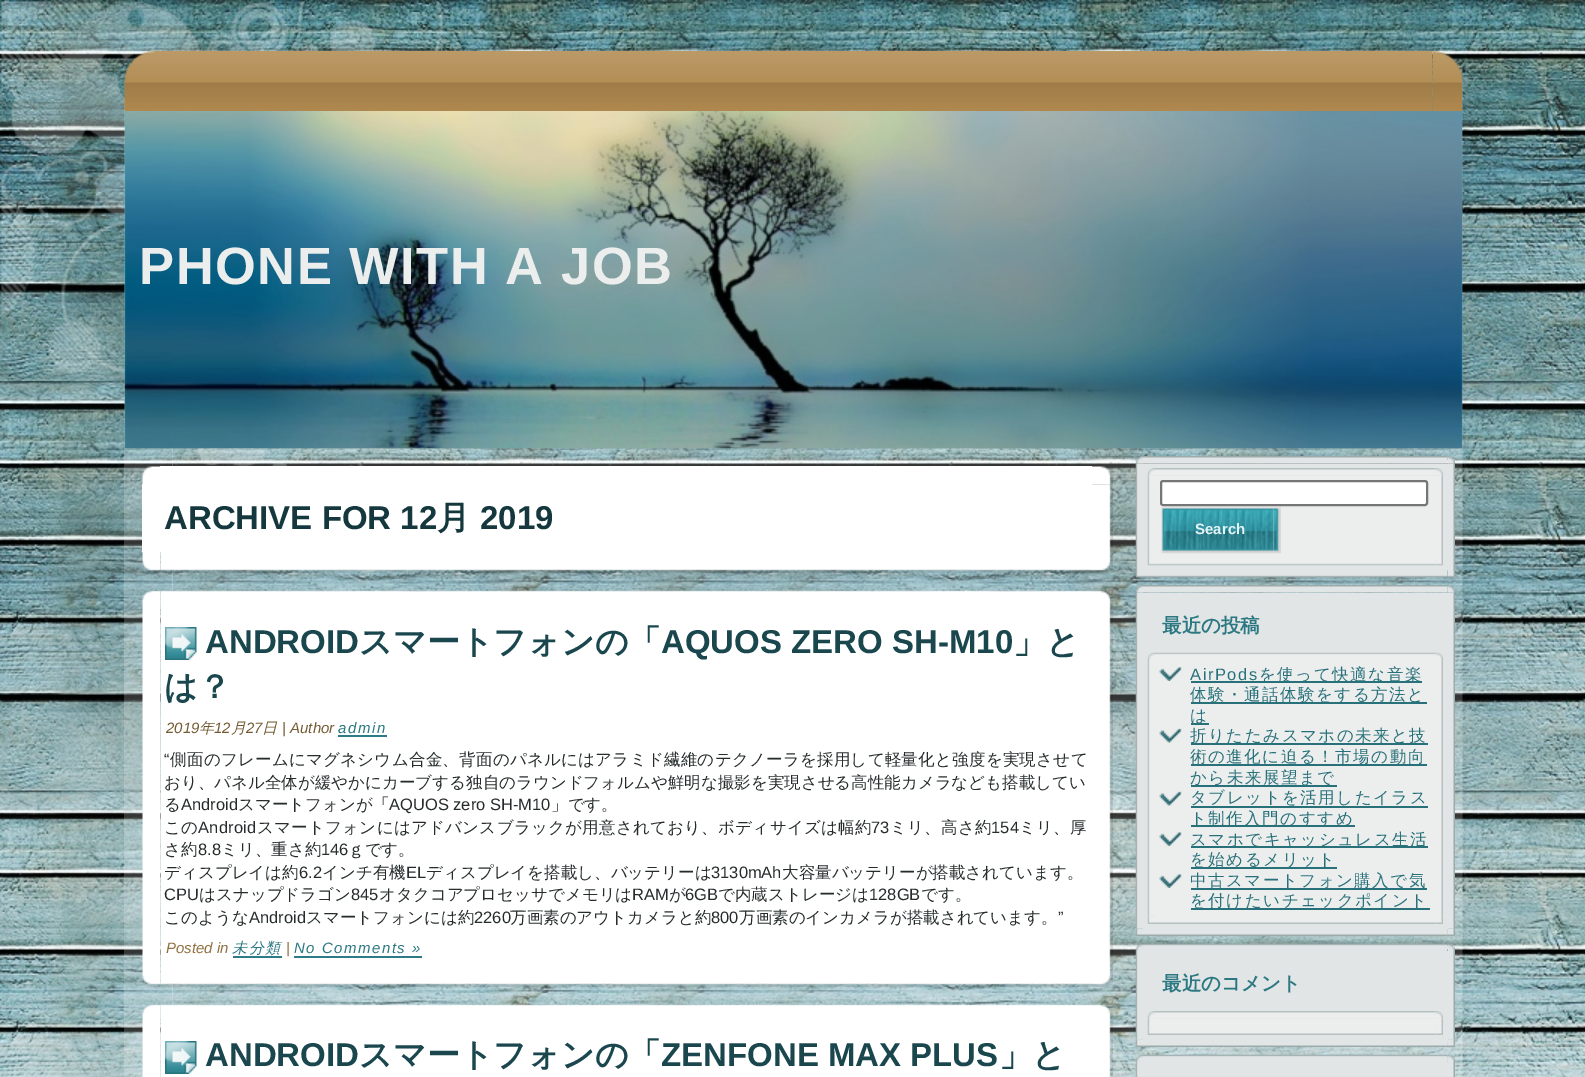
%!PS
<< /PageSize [1585 1077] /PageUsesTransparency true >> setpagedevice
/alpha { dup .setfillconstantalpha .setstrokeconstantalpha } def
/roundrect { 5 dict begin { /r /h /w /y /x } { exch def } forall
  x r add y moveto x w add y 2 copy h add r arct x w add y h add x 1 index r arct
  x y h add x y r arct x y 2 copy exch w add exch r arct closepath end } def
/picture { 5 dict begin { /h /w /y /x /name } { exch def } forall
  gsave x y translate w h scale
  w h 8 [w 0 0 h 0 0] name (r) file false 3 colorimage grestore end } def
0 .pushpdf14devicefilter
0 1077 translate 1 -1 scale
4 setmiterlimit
1 setgray
0 0 1585 1077 rectfill
(img1.rgb) 0 0 1585 1077 picture
(img2.rgb) 1 1 443 574 picture
(img3.rgb) 124 80 3 19 picture
(img4.rgb) 1432 53 33 46 picture
0.2 alpha
124 99 49 978 rectfill
1 alpha
(img5.rgb) 1414 99 53 978 picture
(img6.rgb) 124 51 1309 60 picture
(img7.rgb) 1432 51 31 60 picture
0.2 alpha
172 448 1243 629 rectfill
1 alpha
(img8.rgb) 124 111 1339 338 picture
/LiberationSans-Bold [52.5 0 0 -52.5 0 0] selectfont
0.925 0.933 0.933 setrgbcolor
139 284 moveto 1.5 0 (PHONE WITH A JOB) ashow
(img9.rgb) 142 466 18 18 picture
1 setgray
160 466 932 19 rectfill
(img10.rgb) 1092 466 21 19 picture
142 484 19 68 rectfill
161 485 931 67 rectfill
(img11.rgb) 1092 484 21 68 picture
/LiberationSans-Bold [33 0 0 -33 0 0] selectfont
0.078 0.22 0.239 setrgbcolor
164 529 moveto (ARCHIVE FOR 12) show
/WenQuanYiZenHei-Bold [33 0 0 -33 0 0] selectfont
437 529 moveto (月) show
/LiberationSans-Bold [33 0 0 -33 0 0] selectfont
480 529 moveto (2019) show
(img12.rgb) 142 552 19 21 picture
(img13.rgb) 160 552 932 21 picture
(img14.rgb) 1092 552 21 21 picture
(img15.rgb) 142 590 19 19 picture
(img16.rgb) 160 590 932 19 picture
(img17.rgb) 1092 590 21 19 picture
(img18.rgb) 142 609 19 357 picture
1 setgray
161 609 931 357 rectfill
(img19.rgb) 1092 609 21 357 picture
(img20.rgb) 165 627 32 33 picture
0.102 0.278 0.302 setrgbcolor
205 653 moveto (ANDROID) show
/WenQuanYiZenHei-Bold [33 0 0 -33 0 0] selectfont
359 653 moveto (スマートフォンの「) show
/LiberationSans-Bold [33 0 0 -33 0 0] selectfont
661 653 moveto (AQUOS ZERO SH-M10) show
/WenQuanYiZenHei-Bold [33 0 0 -33 0 0] selectfont
1013 653 moveto (」と) show
164 698 moveto (は？) show
/LiberationSans-Italic [15 0 0 -15 0 0] selectfont
0.455 0.357 0.204 setrgbcolor
166 733 moveto (2019) show
/WenQuanYiZenHei-MediumItalic [15 0 0 -15 0 0] selectfont
199 733 moveto (年) show
/LiberationSans-Italic [15 0 0 -15 0 0] selectfont
214 733 moveto (12) show
/WenQuanYiZenHei-MediumItalic [15 0 0 -15 0 0] selectfont
231 733 moveto (月) show
/LiberationSans-Italic [15 0 0 -15 0 0] selectfont
246 733 moveto (27) show
/WenQuanYiZenHei-MediumItalic [15 0 0 -15 0 0] selectfont
262 733 moveto (日) show
/LiberationSans-Italic [15 0 0 -15 0 0] selectfont
282 733 moveto (| Author) show
0.169 0.471 0.51 setrgbcolor
338 733 moveto 1.5 0 (admin) ashow
0.176 0.482 0.525 setrgbcolor
338 735 49 2 rectfill
/LiberationSans-Regular [16.5 0 0 -16.5 0 0] selectfont
0.149 0.173 0.173 setrgbcolor
164 765 moveto 0.25 0 (“) ashow
/WenQuanYiZenHei-Medium [16.5 0 0 -16.5 0 0] selectfont
170 765 moveto 0.25 0 (側面のフレームにマグネシウム合金、背面のパネルにはアラミド繊維のテクノーラを採用して軽量化と強度を実現させて) ashow
164 788 moveto (おり、パネル全体が緩やかにカーブする独自のラウンドフォルムや鮮明な撮影を実現させる高性能カメラなども搭載してい) show
164 810 moveto (る) show
/LiberationSans-Regular [16.5 0 0 -16.5 0 0] selectfont
181 810 moveto (Android) show
/WenQuanYiZenHei-Medium [16.5 0 0 -16.5 0 0] selectfont
238 810 moveto (スマートフォンが「) show
/LiberationSans-Regular [16.5 0 0 -16.5 0 0] selectfont
389 810 moveto (AQUOS zero SH-M10) show
/WenQuanYiZenHei-Medium [16.5 0 0 -16.5 0 0] selectfont
551 810 moveto (」です。) show
164 833 moveto 0.25 0 (この) ashow
/LiberationSans-Regular [16.5 0 0 -16.5 0 0] selectfont
198 833 moveto 0.25 0 (Android) ashow
/WenQuanYiZenHei-Medium [16.5 0 0 -16.5 0 0] selectfont
257 833 moveto 0.25 0 (スマートフォンにはアドバンスブラックが用意されており、ボディサイズは幅約) ashow
/LiberationSans-Regular [16.5 0 0 -16.5 0 0] selectfont
871 833 moveto 0.25 0 (73) ashow
/WenQuanYiZenHei-Medium [16.5 0 0 -16.5 0 0] selectfont
890 833 moveto 0.25 0 (ミリ、高さ約) ashow
/LiberationSans-Regular [16.5 0 0 -16.5 0 0] selectfont
991 833 moveto 0.25 0 (154) ashow
/WenQuanYiZenHei-Medium [16.5 0 0 -16.5 0 0] selectfont
1019 833 moveto 0.25 0 (ミリ、厚) ashow
164 855 moveto (さ約) show
/LiberationSans-Regular [16.5 0 0 -16.5 0 0] selectfont
198 855 moveto (8.8) show
/WenQuanYiZenHei-Medium [16.5 0 0 -16.5 0 0] selectfont
221 855 moveto (ミリ、重さ約) show
/LiberationSans-Regular [16.5 0 0 -16.5 0 0] selectfont
321 855 moveto (146) show
/WenQuanYiZenHei-Medium [16.5 0 0 -16.5 0 0] selectfont
348 855 moveto (ｇです。) show
164 878 moveto (ディスプレイは約) show
/LiberationSans-Regular [16.5 0 0 -16.5 0 0] selectfont
299 878 moveto (6.2) show
/WenQuanYiZenHei-Medium [16.5 0 0 -16.5 0 0] selectfont
322 878 moveto (インチ有機) show
/LiberationSans-Regular [16.5 0 0 -16.5 0 0] selectfont
406 878 moveto (EL) show
/WenQuanYiZenHei-Medium [16.5 0 0 -16.5 0 0] selectfont
426 878 moveto (ディスプレイを搭載し、バッテリーは) show
/LiberationSans-Regular [16.5 0 0 -16.5 0 0] selectfont
711 878 moveto (3130mAh) show
/WenQuanYiZenHei-Medium [16.5 0 0 -16.5 0 0] selectfont
782 878 moveto (大容量バッテリーが搭載されています。) show
/LiberationSans-Regular [16.5 0 0 -16.5 0 0] selectfont
164 900 moveto (CPU) show
/WenQuanYiZenHei-Medium [16.5 0 0 -16.5 0 0] selectfont
199 900 moveto (はスナップドラゴン) show
/LiberationSans-Regular [16.5 0 0 -16.5 0 0] selectfont
351 900 moveto (845) show
/WenQuanYiZenHei-Medium [16.5 0 0 -16.5 0 0] selectfont
379 900 moveto (オタクコアプロセッサでメモリは) show
/LiberationSans-Regular [16.5 0 0 -16.5 0 0] selectfont
632 900 moveto (RAM) show
/WenQuanYiZenHei-Medium [16.5 0 0 -16.5 0 0] selectfont
669 900 moveto (が) show
/LiberationSans-Regular [16.5 0 0 -16.5 0 0] selectfont
685 900 moveto (6GB) show
/WenQuanYiZenHei-Medium [16.5 0 0 -16.5 0 0] selectfont
718 900 moveto (で内蔵ストレージは) show
/LiberationSans-Regular [16.5 0 0 -16.5 0 0] selectfont
869 900 moveto (128GB) show
/WenQuanYiZenHei-Medium [16.5 0 0 -16.5 0 0] selectfont
921 900 moveto (です。) show
164 923 moveto (このような) show
/LiberationSans-Regular [16.5 0 0 -16.5 0 0] selectfont
249 923 moveto (Android) show
/WenQuanYiZenHei-Medium [16.5 0 0 -16.5 0 0] selectfont
306 923 moveto (スマートフォンには約) show
/LiberationSans-Regular [16.5 0 0 -16.5 0 0] selectfont
474 923 moveto (2260) show
/WenQuanYiZenHei-Medium [16.5 0 0 -16.5 0 0] selectfont
510 923 moveto (万画素のアウトカメラと約) show
/LiberationSans-Regular [16.5 0 0 -16.5 0 0] selectfont
711 923 moveto (800) show
/WenQuanYiZenHei-Medium [16.5 0 0 -16.5 0 0] selectfont
739 923 moveto (万画素のインカメラが搭載されています。) show
/LiberationSans-Regular [16.5 0 0 -16.5 0 0] selectfont
1058 923 moveto (”) show
/LiberationSans-Italic [15 0 0 -15 0 0] selectfont
0.565 0.439 0.255 setrgbcolor
166 953 moveto (Posted in) show
/WenQuanYiZenHei-MediumItalic [15 0 0 -15 0 0] selectfont
0.169 0.471 0.51 setrgbcolor
232 953 moveto 1.5 0 (未分類) ashow
0.176 0.482 0.525 setrgbcolor
233 956 49 2 rectfill
/LiberationSans-Italic [15 0 0 -15 0 0] selectfont
0.565 0.439 0.255 setrgbcolor
286 953 moveto (|) show
0.169 0.471 0.51 setrgbcolor
294 953 moveto 1.5 0 (No Comments ») ashow
0.176 0.482 0.525 setrgbcolor
294 956 128 2 rectfill
(img21.rgb) 142 966 19 21 picture
(img22.rgb) 160 966 932 21 picture
(img23.rgb) 1092 966 21 21 picture
(img24.rgb) 142 1004 19 19 picture
(img25.rgb) 160 1004 932 19 picture
(img26.rgb) 1092 1004 21 19 picture
(img27.rgb) 142 1023 19 54 picture
1 setgray
161 1023 931 54 rectfill
(img28.rgb) 1092 1023 21 54 picture
(img20.rgb) 165 1041 32 33 picture
/LiberationSans-Bold [33 0 0 -33 0 0] selectfont
0.102 0.278 0.302 setrgbcolor
205 1066 moveto (ANDROID) show
/WenQuanYiZenHei-Bold [33 0 0 -33 0 0] selectfont
359 1066 moveto (スマートフォンの「) show
/LiberationSans-Bold [33 0 0 -33 0 0] selectfont
661 1066 moveto (ZENFONE MAX PLUS) show
/WenQuanYiZenHei-Bold [33 0 0 -33 0 0] selectfont
999 1066 moveto (」と) show
(img29.rgb) 1135 456 8 8 picture
(img31.rgb) 1447 456 8 8 picture
(img30.rgb) 1143 456 305 8 picture
(img32.rgb) 1135 463 8 107 picture
(img33.rgb) 1447 463 8 107 picture
0.882 0.898 0.898 setrgbcolor
1143 464 305 106 rectfill
(img34.rgb) 1147 468 8 8 picture
(img36.rgb) 1435 468 8 8 picture
(img35.rgb) 1155 468 281 8 picture
(img37.rgb) 1147 476 8 82 picture
(img38.rgb) 1435 475 8 83 picture
0.925 0.933 0.933 setrgbcolor
1155 476 281 82 rectfill
1 setgray
1161 481 266 24 2 roundrect gsave fill grestore
0.463 setgray
2 setlinewidth
stroke
(img39.rgb) 1161 507 113 47 picture
(img40.rgb) 1273 507 8 47 picture
/LiberationSans-Bold [15 0 0 -15 0 0] selectfont
0.894 0.957 0.965 setrgbcolor
1195 534 moveto (Search) show
(img41.rgb) 1147 558 8 8 picture
(img43.rgb) 1435 558 8 8 picture
(img42.rgb) 1155 558 281 8 picture
(img44.rgb) 1135 570 8 8 picture
(img46.rgb) 1447 570 8 8 picture
(img45.rgb) 1143 570 305 8 picture
(img47.rgb) 1135 585 8 8 picture
(img49.rgb) 1447 585 8 8 picture
(img48.rgb) 1143 585 305 8 picture
(img62.rgb) 1135 928 8 8 picture
(img50.rgb) 1135 592 8 337 picture
(img64.rgb) 1447 928 8 8 picture
(img51.rgb) 1447 592 8 337 picture
0.882 0.898 0.898 setrgbcolor
1143 593 305 336 rectfill
/WenQuanYiZenHei-Bold [19.5 0 0 -19.5 0 0] selectfont
0.169 0.471 0.51 setrgbcolor
1162 632 moveto (最近の投稿) show
(img52.rgb) 1147 652 8 8 picture
(img54.rgb) 1435 652 8 8 picture
(img53.rgb) 1155 652 281 8 picture
(img55.rgb) 1147 660 8 256 picture
(img61.rgb) 1435 916 8 8 picture
0.925 0.933 0.933 setrgbcolor
1155 660 281 257 rectfill
(img56.rgb) 1436 660 7 257 picture
(img57.rgb) 1159 667 23 14 picture
/LiberationSans-Regular [16.5 0 0 -16.5 0 0] selectfont
0.161 0.443 0.478 setrgbcolor
1190 680 moveto 1.5 0 (AirPods) ashow
1191 681 231 2 rectfill
/WenQuanYiZenHei-Medium [16.5 0 0 -16.5 0 0] selectfont
1259 680 moveto 1.5 0 (を使って快適な音楽) ashow
1191 702 236 2 rectfill
1190 700 moveto 1.5 0 (体験・通話体験をする方法と) ashow
1191 723 18 2 rectfill
1190 721 moveto 1.5 0 (は) ashow
(img58.rgb) 1159 728 23 15 picture
1191 743 237 2 rectfill
1190 741 moveto 1.5 0 (折りたたみスマホの未来と技) ashow
1191 764 236 2 rectfill
1190 762 moveto 1.5 0 (術の進化に迫る！市場の動向) ashow
1191 785 146 2 rectfill
1190 783 moveto 1.5 0 (から未来展望まで) ashow
(img58.rgb) 1159 791 23 15 picture
1190 803 moveto 1.5 0 (タブレットを活用したイラス) ashow
1191 806 237 2 rectfill
1191 825 164 2 rectfill
1190 824 moveto 1.5 0 (ト制作入門のすすめ) ashow
(img57.rgb) 1159 832 23 14 picture
1191 846 237 2 rectfill
1190 845 moveto 1.5 0 (スマホでキャッシュレス生活) ashow
1191 867 146 2 rectfill
1190 865 moveto 1.5 0 (を始めるメリット) ashow
(img57.rgb) 1159 874 23 14 picture
1191 888 236 2 rectfill
1190 886 moveto 1.5 0 (中古スマートフォン購入で気) ashow
1191 908 239 2 rectfill
1190 906 moveto 1.5 0 (を付けたいチェックポイント) ashow
(img59.rgb) 1147 916 8 8 picture
(img60.rgb) 1155 917 281 7 picture
(img63.rgb) 1143 929 305 7 picture
(img65.rgb) 1135 943 8 8 picture
(img67.rgb) 1447 943 8 8 picture
(img66.rgb) 1143 943 305 8 picture
(img68.rgb) 1135 951 8 88 picture
(img76.rgb) 1447 1039 8 8 picture
0.882 0.898 0.898 setrgbcolor
1143 951 305 89 rectfill
(img69.rgb) 1448 951 7 89 picture
/WenQuanYiZenHei-Bold [19.5 0 0 -19.5 0 0] selectfont
0.169 0.471 0.51 setrgbcolor
1162 990 moveto (最近のコメント) show
(img34.rgb) 1147 1011 8 8 picture
(img36.rgb) 1435 1011 8 8 picture
(img70.rgb) 1155 1011 281 8 picture
(img59.rgb) 1147 1027 8 8 picture
(img71.rgb) 1147 1018 8 10 picture
(img61.rgb) 1435 1027 8 8 picture
(img72.rgb) 1435 1018 8 10 picture
0.925 0.933 0.933 setrgbcolor
1155 1019 281 9 rectfill
(img73.rgb) 1155 1028 281 7 picture
(img74.rgb) 1135 1039 8 8 picture
(img75.rgb) 1143 1040 305 7 picture
(img77.rgb) 1135 1054 8 8 picture
(img79.rgb) 1447 1054 8 8 picture
(img78.rgb) 1143 1054 305 8 picture
(img80.rgb) 1135 1062 8 15 picture
0.882 0.898 0.898 setrgbcolor
1143 1062 305 15 rectfill
(img81.rgb) 1448 1062 7 15 picture
.poppdf14devicefilter showpage
